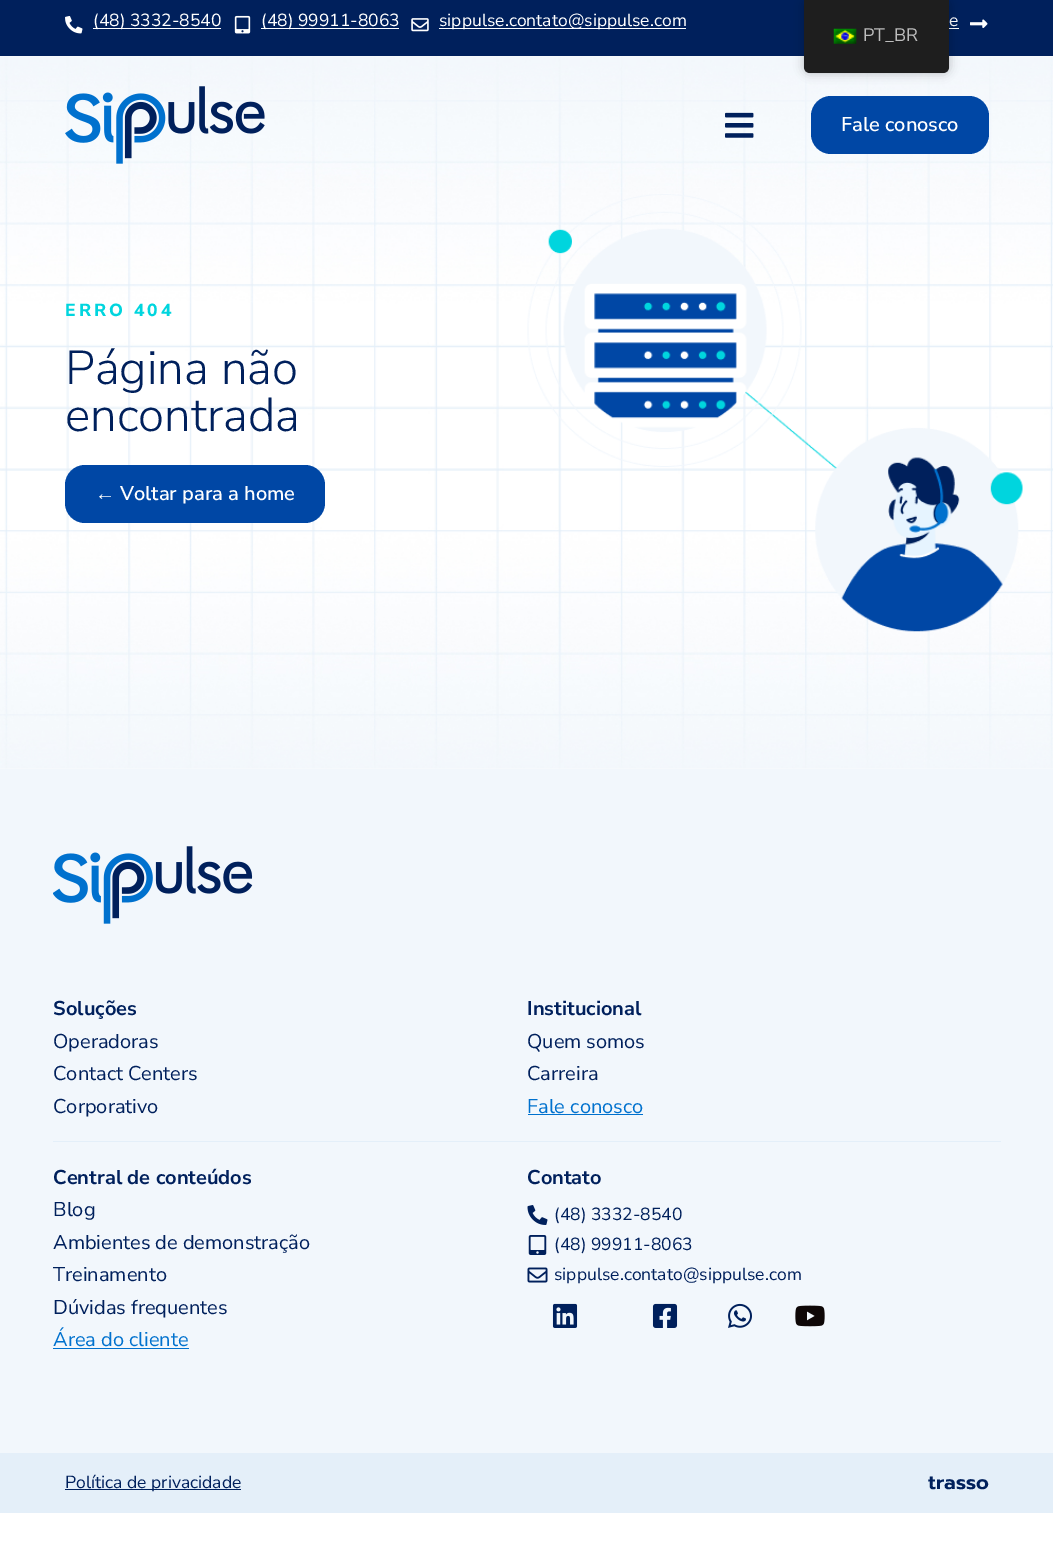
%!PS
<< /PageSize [1053 1549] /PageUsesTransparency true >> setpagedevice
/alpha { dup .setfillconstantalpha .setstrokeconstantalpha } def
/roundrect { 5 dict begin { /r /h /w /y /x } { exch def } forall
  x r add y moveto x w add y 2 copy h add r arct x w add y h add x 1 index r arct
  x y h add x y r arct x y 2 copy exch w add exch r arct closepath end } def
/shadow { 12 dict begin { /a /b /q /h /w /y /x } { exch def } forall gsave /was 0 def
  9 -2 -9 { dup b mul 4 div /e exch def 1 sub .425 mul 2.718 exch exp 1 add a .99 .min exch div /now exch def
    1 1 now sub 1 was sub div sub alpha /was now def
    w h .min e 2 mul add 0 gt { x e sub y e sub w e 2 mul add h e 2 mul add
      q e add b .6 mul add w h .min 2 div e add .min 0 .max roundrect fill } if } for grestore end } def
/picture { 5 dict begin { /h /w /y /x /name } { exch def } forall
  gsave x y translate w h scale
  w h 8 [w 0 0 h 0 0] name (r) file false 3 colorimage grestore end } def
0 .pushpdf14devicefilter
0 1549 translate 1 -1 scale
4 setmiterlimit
1 setgray
0 0 1053 1549 rectfill
0 0.125 0.361 setrgbcolor
0 0 1053 56 rectfill
(img1.rgb) 65 16 18 18 picture
1 setgray
93 28 128 1 rectfill
/NunitoSans-Regular [17.5 0 0 -17.5 0 0] selectfont
93 26 moveto (\(48\) 3332-8540) show
(img2.rgb) 234 15 17 19 picture
261 28 138 1 rectfill
261 26 moveto (\(48\) 99911-8063) show
(img3.rgb) 411 18 18 14 picture
439 28 247 1 rectfill
439 26 moveto (sippulse.contato@sippulse.com) show
949 26 moveto (e) show
949 28 10 1 rectfill
(img4.rgb) 970 19 18 9 picture
(img8.rgb) 0 56 1053 713 picture
(img5.rgb) 65 86 200 78 picture
(img6.rgb) 725 112 29 26 picture
0 0.278 0.647 setrgbcolor
811 96 178 58 20 roundrect fill
/NunitoSans-SemiBold [20 0 0 -20 0 0] selectfont
1 setgray
841 131 moveto (Fale conosco) show
0 setgray
804 0 145 73 6 5 0.25 shadow
0.118 setgray
newpath 804 0 moveto 949 0 lineto 949 67 lineto 949 70.5 946.5 73 943 73 curveto 810 73 lineto 806.5 73 804 70.5 804 67 curveto closepath fill
(img7.rgb) 833 28 24 16 picture
/NunitoSans-Regular [18 0 0 -18 0 0] selectfont
0.741 setgray
863 41 moveto (PT_BR) show
/NunitoSans-ExtraBold [17.5 0 0 -17.5 0 0] selectfont
0 0.835 0.871 setrgbcolor
65 316 moveto 3 0 (ERRO 404) ashow
/NunitoSans-Light [47.5 0 0 -47.5 0 0] selectfont
0 0.125 0.361 setrgbcolor
65 384 moveto (Página não) show
65 431 moveto (encontrada) show
0 0.278 0.647 setrgbcolor
65 465 260 58 20 roundrect fill
/LiberationSans-Bold [20 0 0 -20 0 0] selectfont
1 setgray
95 500 moveto (←) show
/NunitoSans-SemiBold [20 0 0 -20 0 0] selectfont
120 500 moveto (Voltar para a home) show
(img9.rgb) 527 194 496 438 picture
0.949 0.969 0.988 setrgbcolor
0 769 1053 684 rectfill
(img10.rgb) 53 846 200 78 picture
0.894 0.937 0.976 setrgbcolor
53 1141 948 1 rectfill
/NunitoSans-Bold [20 0 0 -20 0 0] selectfont
0 0.125 0.361 setrgbcolor
53 1015 moveto (Soluções) show
/NunitoSans-Regular [20 0 0 -20 0 0] selectfont
53 1048 moveto (Operadoras) show
53 1080 moveto (Contact Centers) show
53 1113 moveto (Corporativo) show
/NunitoSans-Bold [20 0 0 -20 0 0] selectfont
527 1015 moveto (Institucional) show
/NunitoSans-Regular [20 0 0 -20 0 0] selectfont
527 1048 moveto (Quem somos) show
527 1080 moveto (Carreira) show
0 0.443 0.808 setrgbcolor
527 1113 moveto (Fale conosco) show
528 1114 115 1 rectfill
/NunitoSans-Bold [20 0 0 -20 0 0] selectfont
0 0.125 0.361 setrgbcolor
53 1184 moveto (Central de conteúdos) show
/NunitoSans-Regular [20 0 0 -20 0 0] selectfont
53 1216 moveto (Blog) show
53 1249 moveto (Ambientes de demonstração) show
53 1281 moveto (Treinamento) show
53 1314 moveto (Dúvidas frequentes) show
0 0.443 0.808 setrgbcolor
53 1346 moveto (Área do cliente) show
53 1348 136 1 rectfill
/NunitoSans-Bold [20 0 0 -20 0 0] selectfont
0 0.125 0.361 setrgbcolor
527 1184 moveto (Contato) show
(img11.rgb) 527 1205 21 20 picture
/NunitoSans-Regular [17.5 0 0 -17.5 0 0] selectfont
554 1220 moveto (\(48\) 3332-8540) show
(img12.rgb) 528 1235 19 20 picture
554 1250 moveto (\(48\) 99911-8063) show
(img13.rgb) 527 1267 21 16 picture
554 1280 moveto (sippulse.contato@sippulse.com) show
(img14.rgb) 552 1303 26 25 picture
(img15.rgb) 652 1303 26 25 picture
(img16.rgb) 728 1303 24 25 picture
(img17.rgb) 795 1305 30 22 picture
0.894 0.937 0.976 setrgbcolor
0 1453 1053 60 rectfill
0 0.125 0.361 setrgbcolor
65 1489 176 1 rectfill
65 1488 moveto (Política de privacidade) show
/Prompt-SemiBold [20 0 0 -20 0 0] selectfont
928 1489 moveto (trasso) show
.poppdf14devicefilter showpage
